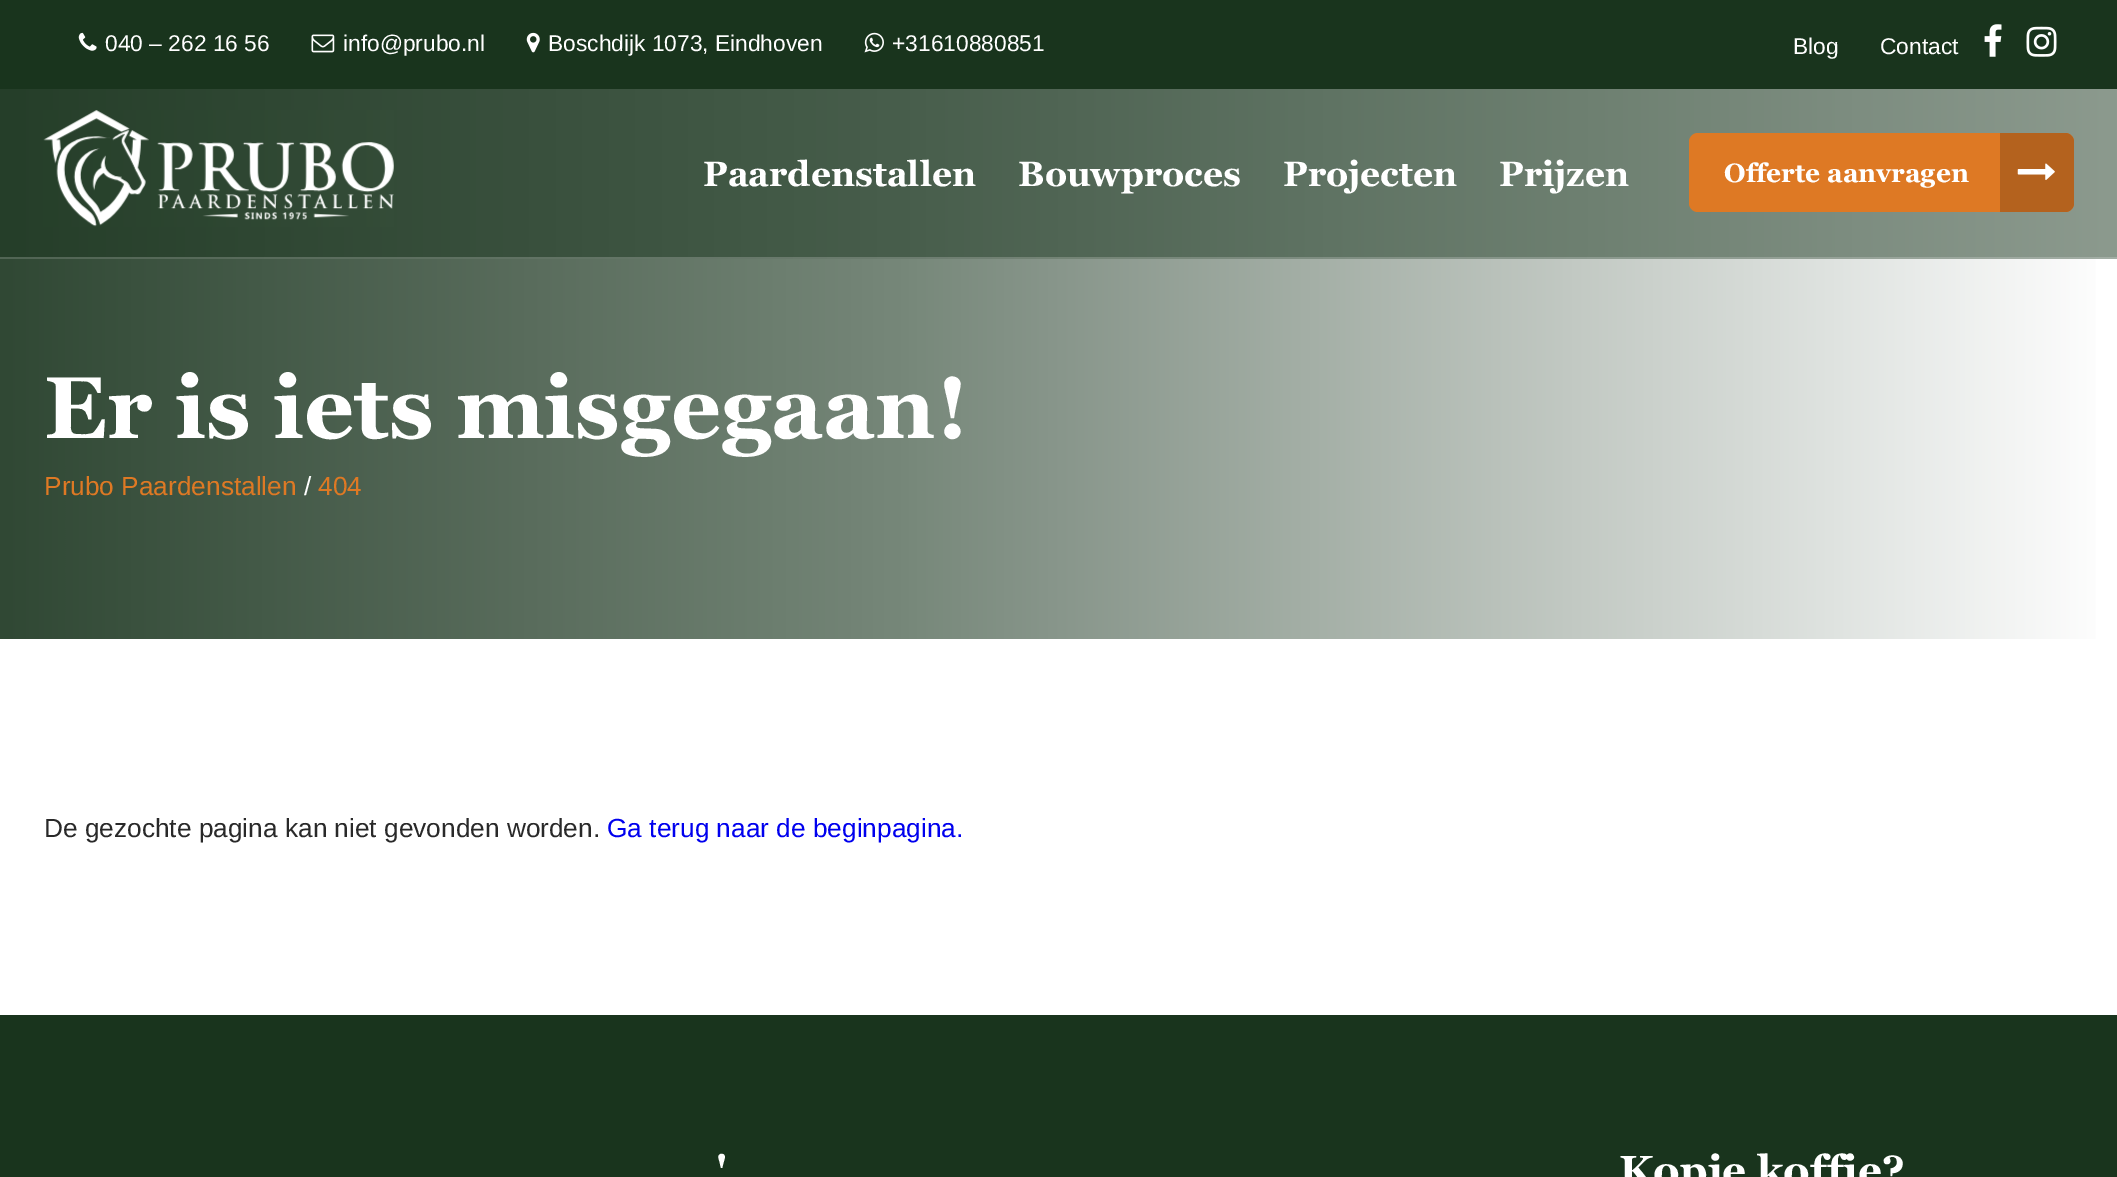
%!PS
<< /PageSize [2117 1177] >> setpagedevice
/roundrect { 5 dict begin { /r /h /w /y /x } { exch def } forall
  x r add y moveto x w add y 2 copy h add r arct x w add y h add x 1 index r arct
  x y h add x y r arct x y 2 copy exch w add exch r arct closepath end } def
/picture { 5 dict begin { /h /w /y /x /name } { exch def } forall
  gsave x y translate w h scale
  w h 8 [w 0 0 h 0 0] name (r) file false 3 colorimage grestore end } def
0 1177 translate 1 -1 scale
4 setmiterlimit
1 setgray
0 0 2117 1177 rectfill
0.098 0.204 0.114 setrgbcolor
0 0 2117 89 rectfill
(img1.rgb) 78 32 19 19 picture
/LiberationSans-Regular [22.75 0 0 -22.75 0 0] selectfont
1 setgray
105 51 moveto (040 – 262 16 56) show
(img2.rgb) 311 34 24 19 picture
343 51 moveto (info@prubo.nl) show
(img3.rgb) 526 32 14 21 picture
548 51 moveto (Boschdijk 1073, Eindhoven) show
(img4.rgb) 864 32 20 21 picture
892 51 moveto (+31610880851) show
1793 54 moveto (Blog) show
1880 54 moveto (Contact) show
(img5.rgb) 1984 24 18 33 picture
(img6.rgb) 2026 26 31 31 picture
gsave newpath 0 89 moveto 2117 89 lineto 2117 257 lineto 0 257 lineto closepath clip newpath
<< /ShadingType 2 /ColorSpace /DeviceRGB /Coords [0 363 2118 363] /Extend [true true] /Function << /FunctionType 3 /Domain [0 1] /Functions [<< /FunctionType 2 /Domain [0 1] /C0 [0.145 0.243 0.161] /C1 [0.278 0.365 0.294] /N 1 >> << /FunctionType 2 /Domain [0 1] /C0 [0.278 0.365 0.294] /C1 [0.549 0.604 0.557] /N 1 >>] /Bounds [0.42] /Encode [0 1 0 1] >> >> shfill grestore
(img7.rgb) 43 110 351 117 picture
/Georgia-Bold [35 0 0 -35 0 0] selectfont
703 186 moveto (Paardenstallen) show
1018 186 moveto (Bouwproces) show
1283 186 moveto (Projecten) show
1499 186 moveto (Prijzen) show
0.871 0.475 0.141 setrgbcolor
1689 133 385 79 9 roundrect fill
/Georgia-Bold [26.25 0 0 -26.25 0 0] selectfont
1 setgray
1724 182 moveto (Offerte aanvragen) show
0.706 0.384 0.118 setrgbcolor
newpath 2000 133 moveto 2065 133 lineto 2070 133 2074 137 2074 142 curveto 2074 203 lineto 2074 208 2070 212 2065 212 curveto 2000 212 lineto closepath fill
(img8.rgb) 2017 163 38 17 picture
gsave newpath 0 259 moveto 2096 259 lineto 2096 639 lineto 0 639 lineto closepath clip newpath
<< /ShadingType 2 /ColorSpace /DeviceRGB /Coords [0 363 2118 363] /Extend [true true] /Function << /FunctionType 3 /Domain [0 1] /Functions [<< /FunctionType 2 /Domain [0 1] /C0 [0.188 0.282 0.204] /C1 [0.459 0.525 0.471] /N 1 >> << /FunctionType 2 /Domain [0 1] /C0 [0.459 0.525 0.471] /C1 [1 1 1] /N 1 >>] /Bounds [0.42] /Encode [0 1 0 1] >> >> shfill grestore
gsave newpath 0 257 moveto 2117 257 lineto 2117 259 lineto 0 259 lineto closepath clip newpath
<< /ShadingType 2 /ColorSpace /DeviceRGB /Coords [0 363 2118 363] /Extend [true true] /Function << /FunctionType 3 /Domain [0 1] /Functions [<< /FunctionType 2 /Domain [0 1] /C0 [0.318 0.396 0.329] /C1 [0.424 0.49 0.435] /N 1 >> << /FunctionType 2 /Domain [0 1] /C0 [0.424 0.49 0.435] /C1 [0.639 0.682 0.647] /N 1 >>] /Bounds [0.42] /Encode [0 1 0 1] >> >> shfill grestore
/Georgia-Bold [87.5 0 0 -87.5 0 0] selectfont
1 setgray
44 438 moveto (Er is iets misgegaan!) show
/LiberationSans-Regular [26.25 0 0 -26.25 0 0] selectfont
0.871 0.475 0.141 setrgbcolor
44 495 moveto (Prubo Paardenstallen) show
1 setgray
304 495 moveto (/) show
0.871 0.475 0.141 setrgbcolor
318 495 moveto (404) show
0.161 setgray
44 837 moveto (De gezochte pagina kan niet gevonden worden.) show
0 0 0.933 setrgbcolor
607 837 moveto (Ga terug naar de beginpagina.) show
0.098 0.204 0.114 setrgbcolor
0 1015 2117 162 rectfill
/Georgia-Bold [42 0 0 -42 0 0] selectfont
1 setgray
716 1185 moveto (') show
1619 1185 moveto (Kopje koffie?) show
showpage
